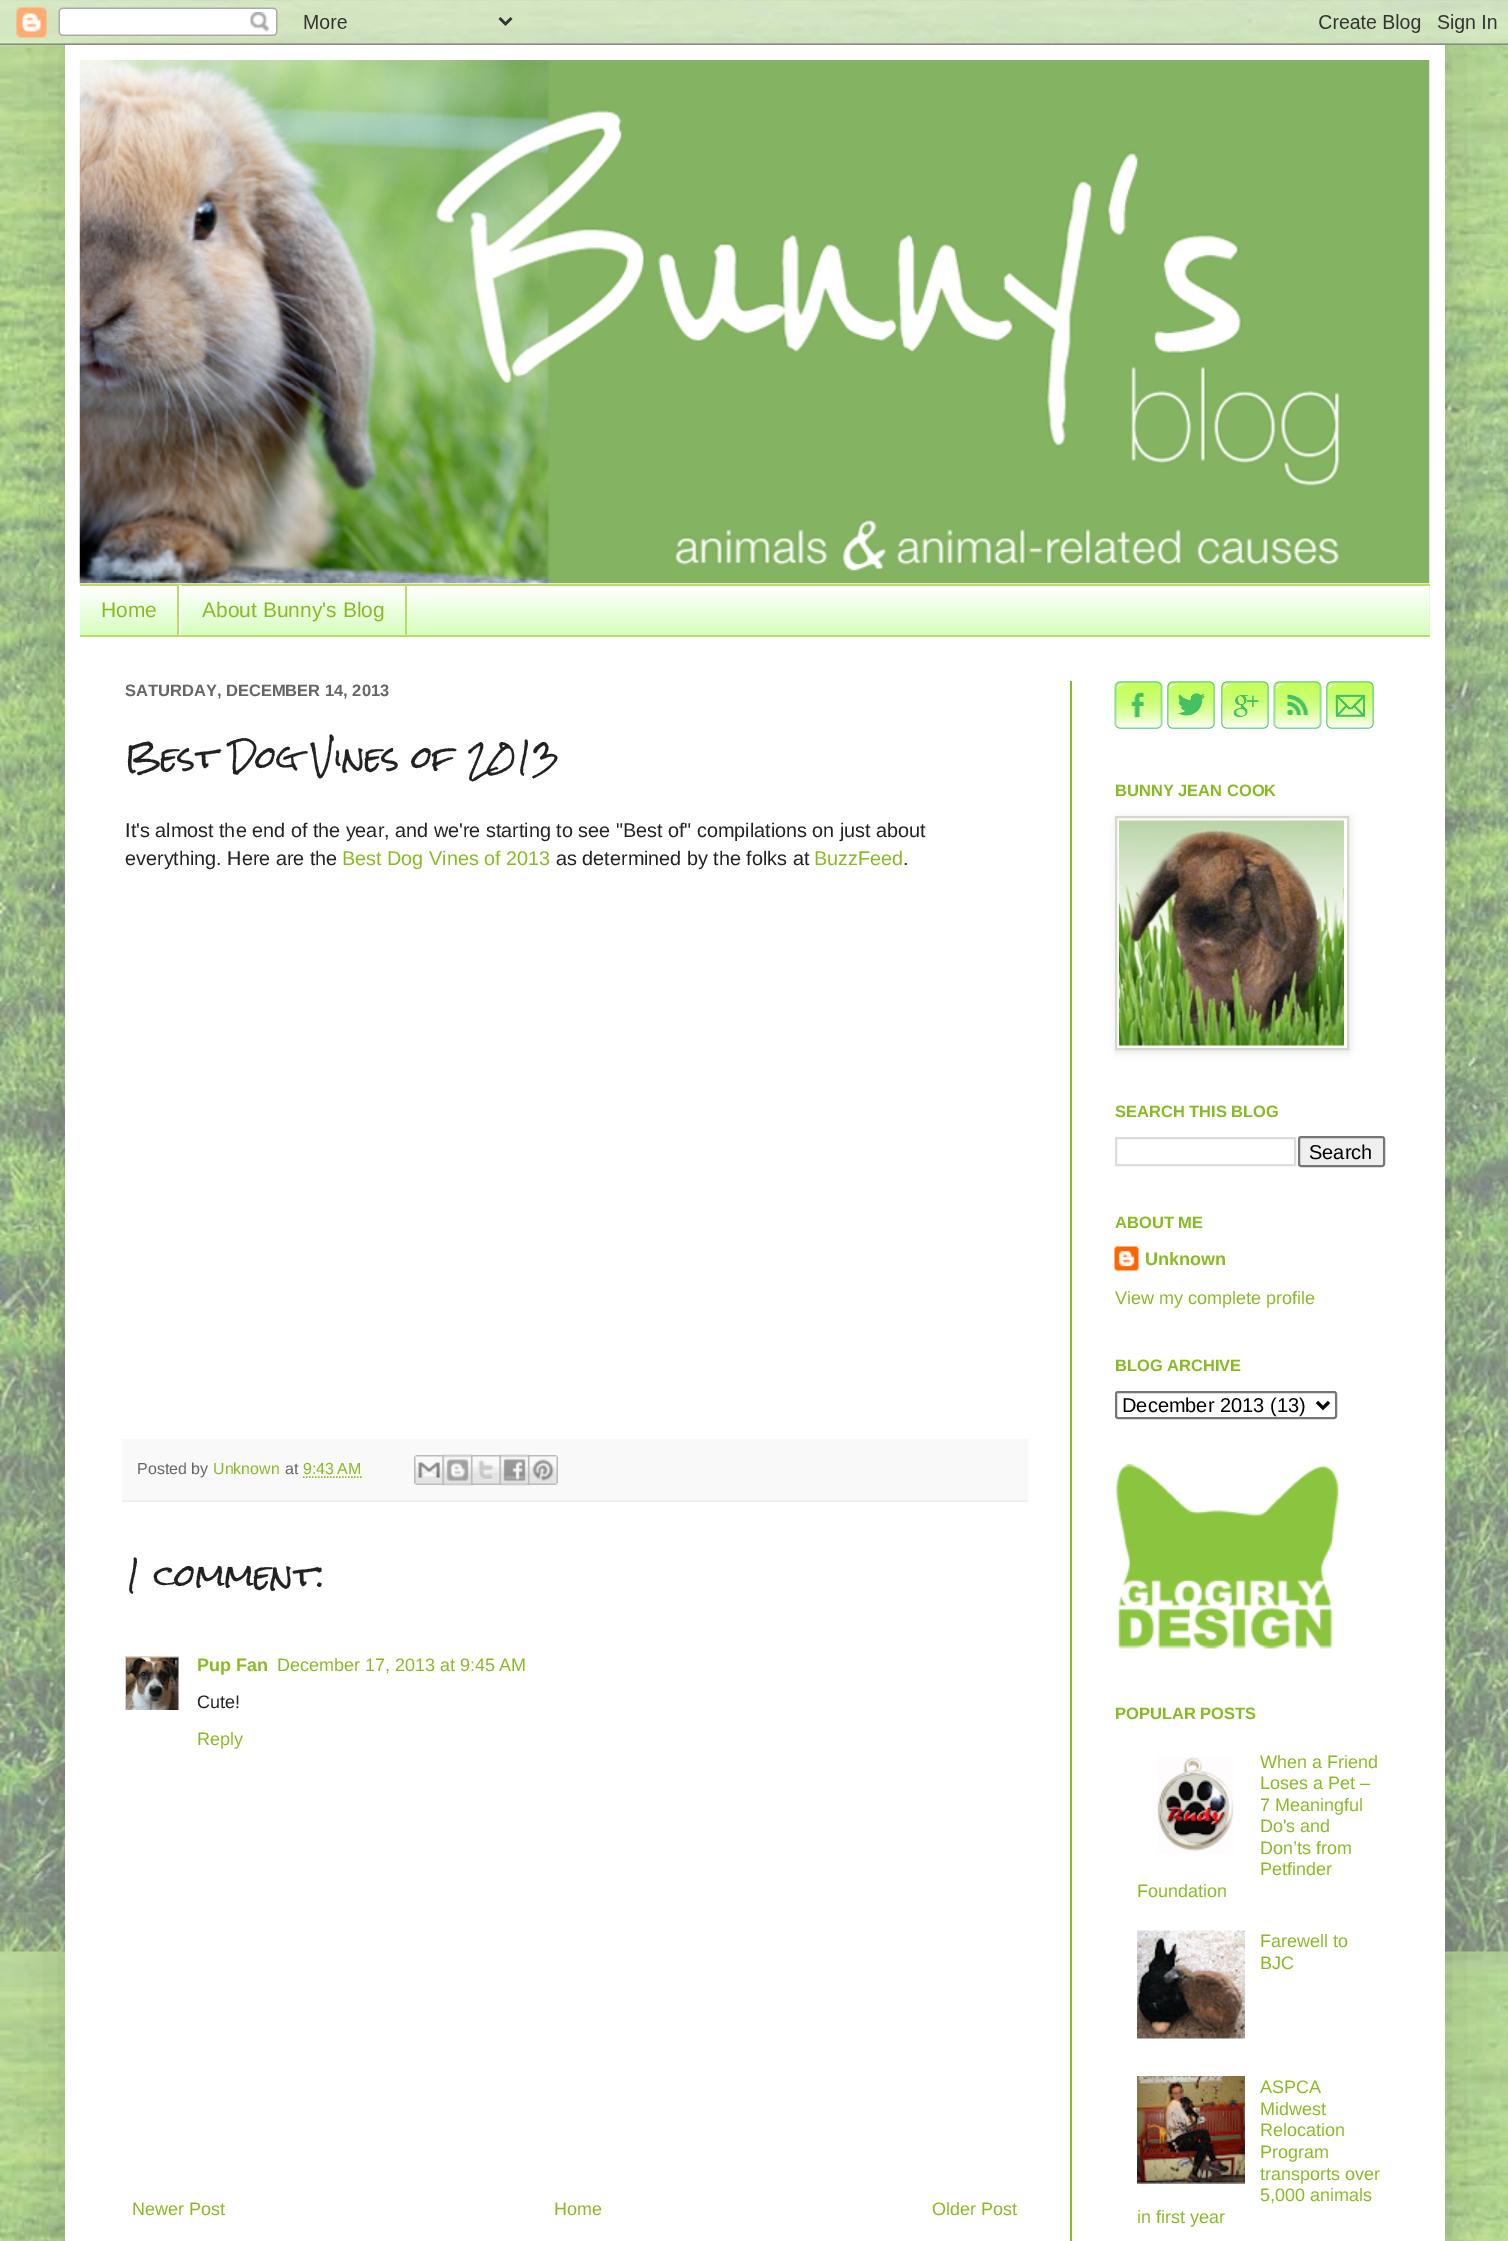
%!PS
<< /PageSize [1508 2241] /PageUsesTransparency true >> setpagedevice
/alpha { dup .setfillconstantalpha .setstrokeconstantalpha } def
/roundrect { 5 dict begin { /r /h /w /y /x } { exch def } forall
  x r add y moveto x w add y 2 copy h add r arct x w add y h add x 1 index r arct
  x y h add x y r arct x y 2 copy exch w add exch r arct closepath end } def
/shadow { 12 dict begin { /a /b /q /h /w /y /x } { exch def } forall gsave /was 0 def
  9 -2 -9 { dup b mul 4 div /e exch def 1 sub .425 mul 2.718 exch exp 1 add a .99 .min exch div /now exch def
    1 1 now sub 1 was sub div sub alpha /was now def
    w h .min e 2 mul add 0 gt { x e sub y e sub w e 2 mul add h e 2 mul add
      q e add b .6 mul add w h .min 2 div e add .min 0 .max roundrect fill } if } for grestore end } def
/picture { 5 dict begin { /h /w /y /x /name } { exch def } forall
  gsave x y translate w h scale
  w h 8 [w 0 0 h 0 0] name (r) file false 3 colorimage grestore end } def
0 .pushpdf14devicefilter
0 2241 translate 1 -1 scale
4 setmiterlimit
1 setgray
0 0 1508 2241 rectfill
(img1.rgb) 0 600 1508 1641 picture
(img2.rgb) 0 0 1508 600 picture
0 setgray
65 45 1380 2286 0 30 0.15 shadow
(img3.rgb) 0 0 1508 45 picture
1 setgray
65 45 1380 2196 rectfill
(img4.rgb) 79 60 1351 524 picture
0.808 1 0.698 setrgbcolor
80 586 1350 49 rectfill
(img5.rgb) 80 586 1350 49 picture
0.733 0.867 0.4 setrgbcolor
80 584 1350 2 rectfill
80 635 1350 2 rectfill
177 585 2 50 rectfill
/LiberationSans-Regular [21 0 0 -21 0 0] selectfont
0.533 0.733 0.129 setrgbcolor
101 617 moveto (Home) show
0.733 0.867 0.4 setrgbcolor
405 585 2 50 rectfill
1 setgray
179 585 2 50 rectfill
0.533 0.733 0.129 setrgbcolor
202 617 moveto (About Bunny's Blog) show
1070 681 2 1560 rectfill
/LiberationSans-Bold [16.5 0 0 -16.5 0 0] selectfont
0.4 setgray
125 696 moveto (SATURDAY, DECEMBER 14, 2013) show
/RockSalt-Regular [30 0 0 -30 0 0] selectfont
0.133 setgray
125 769 moveto (Best Dog Vines of 2013) show
/LiberationSans-Regular [19.8 0 0 -19.8 0 0] selectfont
125 837 moveto (It's almost the end of the year, and we're starting to see "Best of" compilations on just about) show
125 865 moveto (everything. Here are the) show
0.533 0.733 0.129 setrgbcolor
342 865 moveto (Best Dog Vines of 2013) show
0.133 setgray
556 865 moveto (as determined by the folks at) show
0.533 0.733 0.129 setrgbcolor
814 865 moveto (BuzzFeed) show
0.133 setgray
903 865 moveto (.) show
0.976 setgray
122 1439 906 61 rectfill
0.933 setgray
122 1500 906 2 rectfill
/LiberationSans-Regular [16 0 0 -16 0 0] selectfont
0.4 setgray
137 1474 moveto (Posted by) show
0.533 0.733 0.129 setrgbcolor
213 1474 moveto (Unknown) show
0.4 setgray
285 1474 moveto (at) show
0.533 0.733 0.129 setrgbcolor
303 1474 moveto (9:43 AM) show
1.5 setlinewidth
[1.5 1.5] 0 setdash
newpath 303 1477 moveto 362 1477 lineto stroke
(img6.rgb) 414 1455 30 30 picture
(img7.rgb) 442 1454 31 32 picture
(img8.rgb) 471 1455 30 30 picture
(img9.rgb) 499 1454 31 32 picture
(img10.rgb) 528 1455 30 30 picture
/RockSalt-Regular [30 0 0 -30 0 0] selectfont
0.133 setgray
125 1587 moveto (1 comment:) show
gsave
125 1656 54 54 rectclip
0.835 0.847 0.812 setrgbcolor
2 setlinewidth
[] 0 setdash
126 1657 55 55 rectstroke
grestore
(img11.rgb) 126 1657 53 53 picture
/LiberationSans-Bold [18 0 0 -18 0 0] selectfont
0.533 0.733 0.129 setrgbcolor
197 1671 moveto (Pup Fan) show
/LiberationSans-Regular [18 0 0 -18 0 0] selectfont
277 1671 moveto (December 17, 2013 at 9:45 AM) show
0.133 setgray
197 1708 moveto (Cute!) show
0.533 0.733 0.129 setrgbcolor
197 1745 moveto (Reply) show
132 2215 moveto (Newer Post) show
554 2215 moveto (Home) show
932 2215 moveto (Older Post) show
(img12.rgb) 1114 681 49 48 picture
(img13.rgb) 1167 681 48 48 picture
(img14.rgb) 1221 681 48 48 picture
(img15.rgb) 1273 681 49 48 picture
(img16.rgb) 1326 681 48 48 picture
/LiberationSans-Bold [16.5 0 0 -16.5 0 0] selectfont
1115 796 moveto (BUNNY JEAN COOK) show
0 setgray
1116 818 234 234 0 4 0.1 shadow
1 setgray
newpath 1116 817 moveto 1348 817 lineto 1348 1049 lineto 1116 1049 lineto closepath gsave fill grestore
0.835 0.847 0.812 setrgbcolor
2 setlinewidth
[] 0 setdash
stroke
(img17.rgb) 1119 820 225 226 picture
0.533 0.733 0.129 setrgbcolor
1115 1117 moveto (SEARCH THIS BLOG) show
0.867 setgray
1116 1138 179 27 rectstroke
0.937 setgray
1299 1137 85 29 2 roundrect gsave fill grestore
0.463 setgray
stroke
/LiberationSans-Regular [20 0 0 -20 0 0] selectfont
0 setgray
1309 1159 moveto (Search) show
/LiberationSans-Bold [16.5 0 0 -16.5 0 0] selectfont
0.533 0.733 0.129 setrgbcolor
1115 1228 moveto (ABOUT ME) show
(img18.rgb) 1114 1246 25 25 picture
/LiberationSans-Bold [18 0 0 -18 0 0] selectfont
1145 1265 moveto (Unknown) show
/LiberationSans-Regular [18 0 0 -18 0 0] selectfont
1115 1304 moveto (View my complete profile) show
/LiberationSans-Bold [16.5 0 0 -16.5 0 0] selectfont
1115 1371 moveto (BLOG ARCHIVE) show
0.463 setgray
1116 1392 220 26 2 roundrect stroke
0 setgray
3 setlinewidth
newpath 1317 1402 moveto 1323 1408 lineto 1329 1402 lineto stroke
/LiberationSans-Regular [20 0 0 -20 0 0] selectfont
1122 1412 moveto (December 2013 \(13\)) show
(img19.rgb) 1115 1464 224 185 picture
/LiberationSans-Bold [16.5 0 0 -16.5 0 0] selectfont
0.533 0.733 0.129 setrgbcolor
1115 1719 moveto (POPULAR POSTS) show
/LiberationSans-Regular [18 0 0 -18 0 0] selectfont
1260 1768 moveto (When a Friend) show
1260 1789 moveto (Loses a Pet –) show
1260 1811 moveto (7 Meaningful) show
1260 1832 moveto (Do's and) show
1260 1854 moveto (Don’ts from) show
1260 1875 moveto (Petfinder) show
1137 1897 moveto (Foundation) show
(img20.rgb) 1157 1756 77 98 picture
(img21.rgb) 1137 1930 108 109 picture
1260 1947 moveto (Farewell to) show
1260 1969 moveto (BJC) show
(img22.rgb) 1137 2076 108 108 picture
1260 2093 moveto (ASPCA) show
1260 2115 moveto (Midwest) show
1260 2136 moveto (Relocation) show
1260 2158 moveto (Program) show
1260 2180 moveto (transports over) show
1260 2201 moveto (5,000 animals) show
1137 2223 moveto (in first year) show
.poppdf14devicefilter showpage
